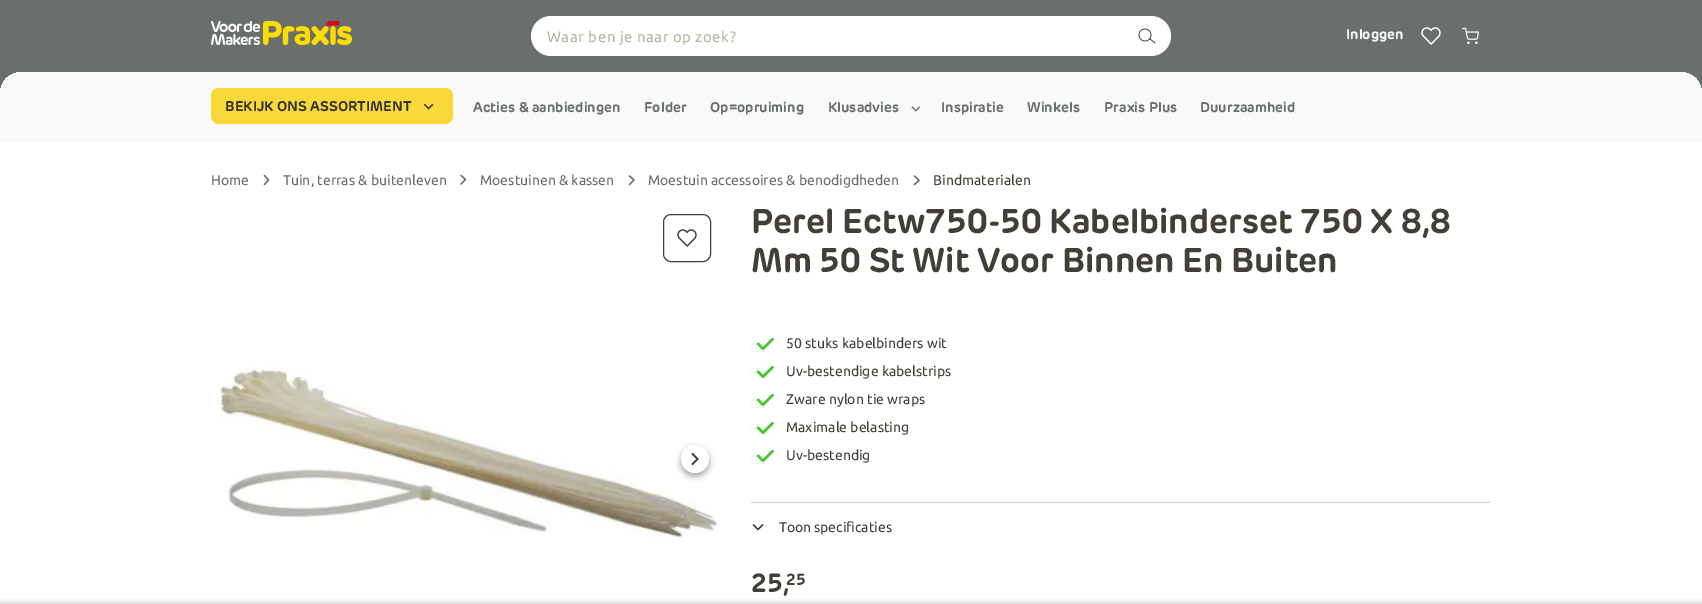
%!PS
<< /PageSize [1702 604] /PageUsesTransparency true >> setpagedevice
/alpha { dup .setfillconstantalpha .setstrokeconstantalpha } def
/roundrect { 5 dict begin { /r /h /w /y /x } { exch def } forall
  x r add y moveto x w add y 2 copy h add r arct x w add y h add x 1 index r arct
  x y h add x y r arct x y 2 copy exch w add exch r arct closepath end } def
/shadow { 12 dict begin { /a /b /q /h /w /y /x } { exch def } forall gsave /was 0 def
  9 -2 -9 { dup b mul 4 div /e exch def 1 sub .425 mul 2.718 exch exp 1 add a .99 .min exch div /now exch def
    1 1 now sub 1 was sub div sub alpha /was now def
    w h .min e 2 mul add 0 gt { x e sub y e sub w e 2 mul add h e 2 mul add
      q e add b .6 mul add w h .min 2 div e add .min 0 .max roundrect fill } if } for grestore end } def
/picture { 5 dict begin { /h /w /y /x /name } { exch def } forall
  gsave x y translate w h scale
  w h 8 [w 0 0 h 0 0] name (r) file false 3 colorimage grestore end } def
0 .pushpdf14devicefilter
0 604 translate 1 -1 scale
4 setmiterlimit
1 setgray
0 0 1702 604 rectfill
0.412 0.435 0.416 setrgbcolor
0 0 1702 72 rectfill
(img1.rgb) 211 21 49 24 picture
(img2.rgb) 263 21 89 24 picture
1 setgray
531 16 640 40 20 roundrect fill
/Ubuntu-Regular [15 0 0 -15 0 0] selectfont
0.718 0.702 0.635 setrgbcolor
547 42 moveto 0.5 0 (Waar ben je naar op zoek?) ashow
(img3.rgb) 1138 28 18 16 picture
/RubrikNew-Bold [14 0 0 -14 0 0] selectfont
1 setgray
1346 39 moveto (Inloggen) show
(img4.rgb) 1421 27 20 18 picture
(img5.rgb) 1462 27 18 17 picture
0.976 0.976 0.973 setrgbcolor
0 72 1702 70 rectfill
gsave newpath 0 72 moveto 16 72 lineto 16 88 lineto 0 88 lineto closepath clip newpath 20 92 translate 28 28 scale
<< /ShadingType 3 /ColorSpace /DeviceRGB /Coords [0 0 0 0 0 1] /Extend [true true] /Function << /FunctionType 3 /Domain [0 1] /Functions [<< /FunctionType 2 /Domain [0 1] /C0 [0.976 0.976 0.973] /C1 [0.976 0.976 0.973] /N 1 >> << /FunctionType 2 /Domain [0 1] /C0 [0.412 0.435 0.416] /C1 [0.412 0.435 0.416] /N 1 >>] /Bounds [0.71] /Encode [0 1 0 1] >> >> shfill grestore
gsave newpath 1686 72 moveto 1702 72 lineto 1702 88 lineto 1686 88 lineto closepath clip newpath 1682 92 translate 28 28 scale
<< /ShadingType 3 /ColorSpace /DeviceRGB /Coords [0 0 0 0 0 1] /Extend [true true] /Function << /FunctionType 3 /Domain [0 1] /Functions [<< /FunctionType 2 /Domain [0 1] /C0 [0.976 0.976 0.973] /C1 [0.976 0.976 0.973] /N 1 >> << /FunctionType 2 /Domain [0 1] /C0 [0.412 0.435 0.416] /C1 [0.412 0.435 0.416] /N 1 >>] /Bounds [0.71] /Encode [0 1 0 1] >> >> shfill grestore
0.976 0.847 0.224 setrgbcolor
211 88 242 36 8 roundrect fill
0.2 setgray
225 111 moveto (BEKIJK ONS ASSORTIMENT) show
(img6.rgb) 423 103 11 7 picture
0.412 0.435 0.416 setrgbcolor
473 112 moveto (Acties & aanbiedingen) show
644 112 moveto (Folder) show
710 112 moveto (Op=opruiming) show
828 112 moveto (Klusadvies) show
(img7.rgb) 911 106 9 6 picture
941 112 moveto (Inspiratie) show
1027 112 moveto (Winkels) show
1104 112 moveto (Praxis Plus) show
1200 112 moveto (Duurzaamheid) show
/Ubuntu-Regular [14 0 0 -14 0 0] selectfont
211 185 moveto (Home) show
1.3 setlinewidth
1 setlinecap
1 setlinejoin
newpath 264.5 184.5 moveto 268.5 180 lineto 264.5 175.5 lineto stroke
283 185 moveto (Tuin, terras & buitenleven) show
newpath 461 184 moveto 465.5 179.5 lineto 461 175.5 lineto stroke
480 185 moveto (Moestuinen & kassen) show
newpath 629.5 184.5 moveto 634 180 lineto 629.5 176 lineto stroke
648 185 moveto (Moestuin accessoires & benodigdheden) show
newpath 914.5 184.5 moveto 919 180.5 lineto 914.5 176 lineto stroke
0.255 0.247 0.216 setrgbcolor
933 185 moveto (Bindmaterialen) show
1 setlinewidth
0 setlinecap
0 setlinejoin
663.5 214.5 47 47 7.5 roundrect stroke
(img8.rgb) 677 229 20 18 picture
(img9.rgb) 218 367 501 171 picture
0 setgray
681 448 28 28 14 3 0.23 shadow
681 448 28 28 14 3 0.16 shadow
1 setgray
newpath 695 459 14 0 360 arc closepath fill
(img10.rgb) 691 452 8 14 picture
/RubrikNew-Bold [34 0 0 -34 0 0] selectfont
0.255 0.247 0.216 setrgbcolor
751 233 moveto -0.5 0 32 (Perel Ectw750-50 Kabelbinderset 750 X 8,8) widthshow
751 272 moveto -0.5 0 32 (Mm 50 St Wit Voor Binnen En Buiten) widthshow
(img11.rgb) 756 337 18 14 picture
/Ubuntu-Regular [14 0 0 -14 0 0] selectfont
786 348 moveto (50 stuks kabelbinders wit) show
(img11.rgb) 756 365 18 14 picture
786 376 moveto (Uv-bestendige kabelstrips) show
(img11.rgb) 756 393 18 14 picture
786 404 moveto (Zware nylon tie wraps) show
(img11.rgb) 756 421 18 14 picture
786 432 moveto (Maximale belasting) show
(img11.rgb) 756 449 18 14 picture
786 460 moveto (Uv-bestendig) show
0.835 0.824 0.788 setrgbcolor
751 502 740 1 rectfill
0.2 setgray
1.3 setlinewidth
1 setlinecap
1 setlinejoin
newpath 753.5 525 moveto 758 529.5 lineto 762.5 525 lineto stroke
0.255 0.247 0.216 setrgbcolor
779 532 moveto -1 0 32 (Toon specificaties) widthshow
/RubrikNew-Bold [26 0 0 -26 0 0] selectfont
751 592 moveto (25,) show
/RubrikNew-Bold [16 0 0 -16 0 0] selectfont
786 585 moveto (25) show
0 setgray
0 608 1702 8 0 4 1 shadow
.poppdf14devicefilter showpage
